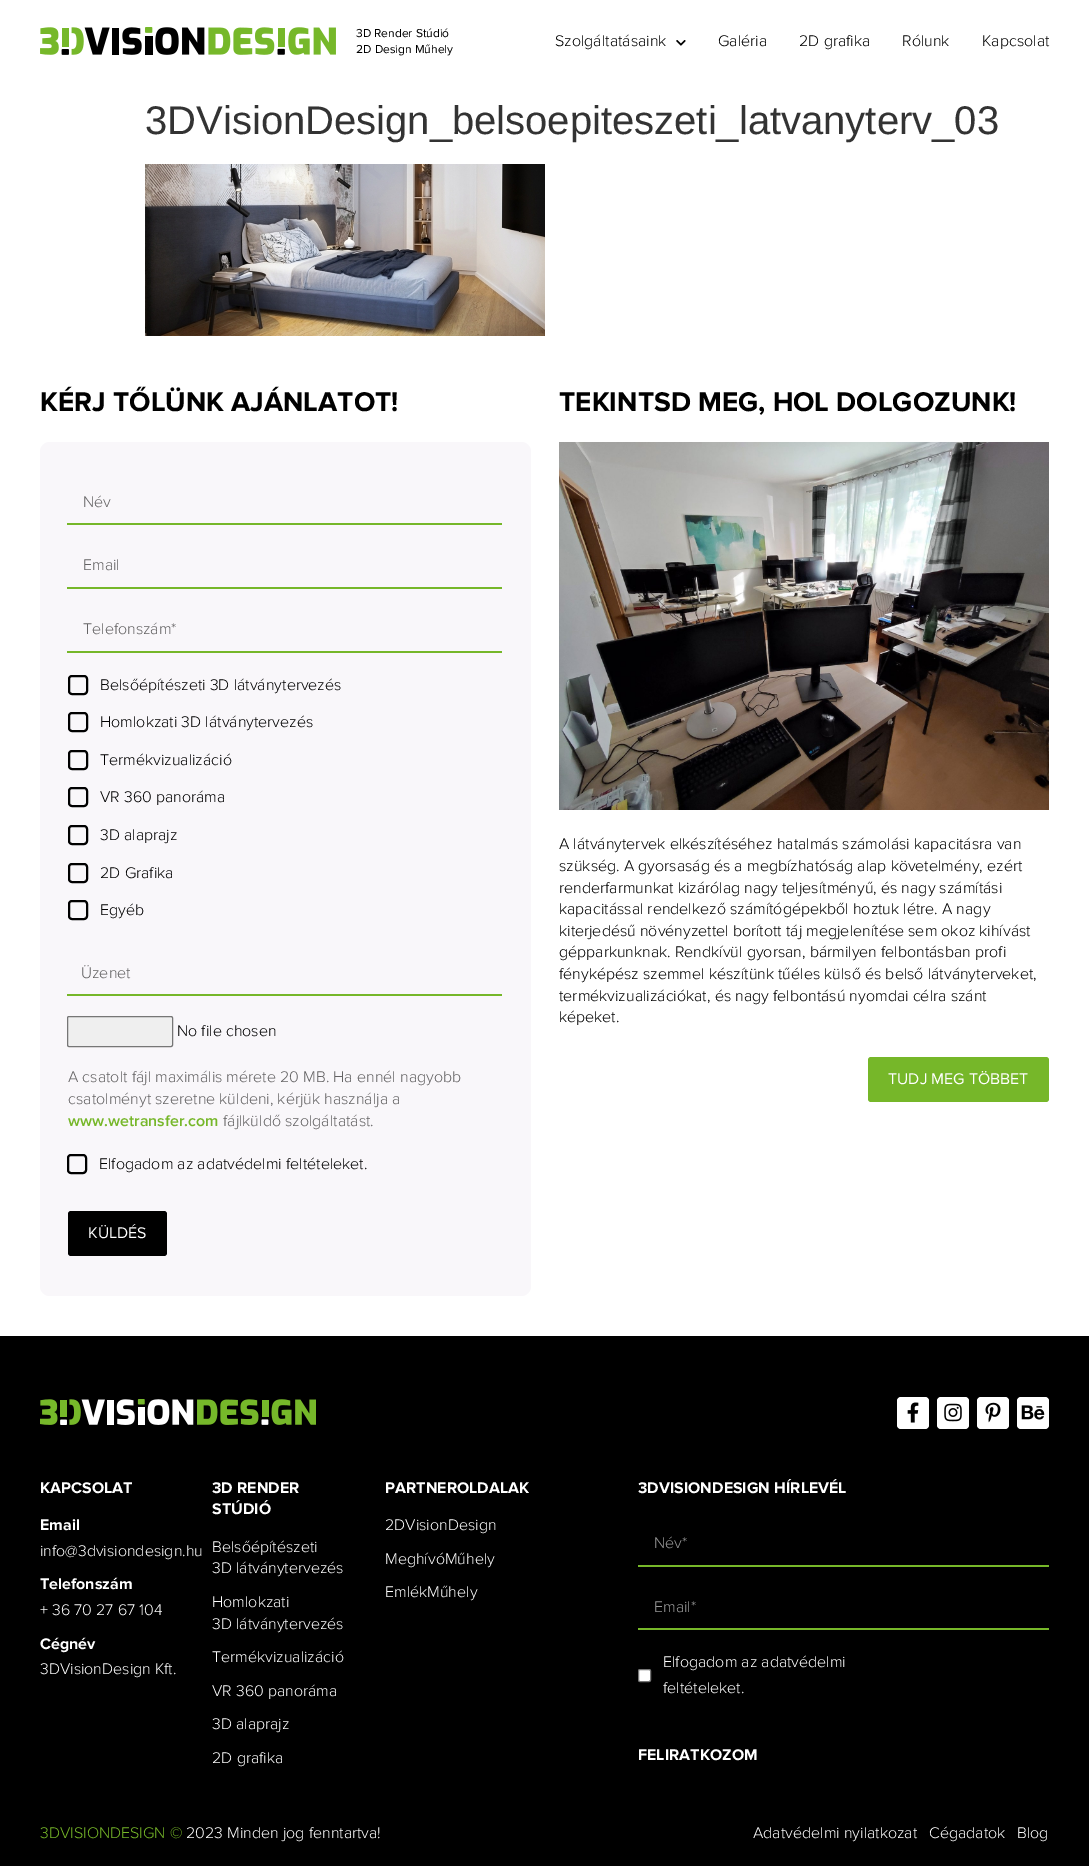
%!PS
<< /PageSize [1089 1866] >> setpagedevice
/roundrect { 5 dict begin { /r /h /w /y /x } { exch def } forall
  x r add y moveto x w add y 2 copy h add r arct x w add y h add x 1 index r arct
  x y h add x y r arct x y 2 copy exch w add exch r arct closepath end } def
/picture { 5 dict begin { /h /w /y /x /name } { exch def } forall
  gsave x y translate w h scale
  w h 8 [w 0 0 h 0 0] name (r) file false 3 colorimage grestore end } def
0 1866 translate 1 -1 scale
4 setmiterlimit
1 setgray
0 0 1089 1866 rectfill
(img1.rgb) 40 27 296 28 picture
/ProximaNova-Regular [12 0 0 -12 0 0] selectfont
0 setgray
356 37 moveto (3D Render Stúdió) show
356 53 moveto (2D Design Műhely) show
/ProximaNova-Light [16 0 0 -16 0 0] selectfont
555 46 moveto (Szolgáltatásaink) show
(img2.rgb) 676 40 10 6 picture
718 46 moveto (Galéria) show
799 46 moveto (2D grafika) show
902 46 moveto (Rólunk) show
982 46 moveto (Kapcsolat) show
/LiberationSans-Regular [40 0 0 -40 0 0] selectfont
0.2 setgray
145 134 moveto (3DVisionDesign_belsoepiteszeti_latvanyterv_03) show
(img3.rgb) 145 164 400 172 picture
/ProximaNova-Bold [28 0 0 -28 0 0] selectfont
0 setgray
40 411 moveto (KÉRJ TŐLÜNK AJÁNLATOT!) show
0.976 0.969 0.98 setrgbcolor
40 442 491 854 10 roundrect fill
0.463 0.718 0.161 setrgbcolor
67 523 435 2 rectfill
/ProximaNova-Light [16 0 0 -16 0 0] selectfont
0.392 0.388 0.392 setrgbcolor
83 507 moveto (Név) show
0.463 0.718 0.161 setrgbcolor
67 587 435 2 rectfill
0.392 0.388 0.392 setrgbcolor
83 570 moveto (Email) show
0.463 0.718 0.161 setrgbcolor
67 651 435 2 rectfill
0.392 0.388 0.392 setrgbcolor
83 634 moveto (Telefonszám*) show
0 setgray
2 setlinewidth
69 676 18 18 3 roundrect stroke
100 690 moveto (Belsőépítészeti 3D látványtervezés) show
69 713 18 18 3 roundrect stroke
100 727 moveto (Homlokzati 3D látványtervezés) show
69 751 18 18 3 roundrect stroke
100 765 moveto (Termékvizualizáció) show
69 788 18 18 3 roundrect stroke
100 802 moveto (VR 360 panoráma) show
69 826 18 18 3 roundrect stroke
100 840 moveto (3D alaprajz) show
69 864 18 18 3 roundrect stroke
100 878 moveto (2D Grafika) show
69 901 18 18 3 roundrect stroke
100 915 moveto (Egyéb) show
0.463 0.718 0.161 setrgbcolor
67 994 435 2 rectfill
0.392 0.388 0.392 setrgbcolor
81 978 moveto (Üzenet) show
0.937 setgray
67.5 1016.5 105 30 1.5 roundrect gsave fill grestore
0.463 setgray
1 setlinewidth
stroke
0 setgray
177 1036 moveto (No file chosen) show
0.392 0.388 0.392 setrgbcolor
68 1082 moveto (A csatolt fájl maximális mérete 20 MB. Ha ennél nagyobb) show
68 1104 moveto (csatolményt szeretne küldeni, kérjük használja a) show
/ProximaNova-SemiBold [16 0 0 -16 0 0] selectfont
0.463 0.718 0.161 setrgbcolor
68 1126 moveto (www.wetransfer.com) show
/ProximaNova-Light [16 0 0 -16 0 0] selectfont
0.392 0.388 0.392 setrgbcolor
223 1126 moveto (fájlküldő szolgáltatást.) show
0 setgray
2 setlinewidth
68 1155 18 18 3 roundrect stroke
99 1169 moveto (Elfogadom az adatvédelmi feltételeket.) show
68 1211 99 45 3 roundrect fill
/ProximaNova-Regular [16 0 0 -16 0 0] selectfont
1 setgray
88 1238 moveto (KÜLDÉS) show
/ProximaNova-Bold [28 0 0 -28 0 0] selectfont
0 setgray
559 411 moveto (TEKINTSD MEG, HOL DOLGOZUNK!) show
(img4.rgb) 559 442 490 368 picture
/ProximaNova-Light [16 0 0 -16 0 0] selectfont
559 849 moveto (A látványtervek elkészítéséhez hatalmás számolási kapacitásra van) show
559 871 moveto (szükség. A gyorsaság és a megbízhatóság alap követelmény, ezért) show
559 893 moveto (renderfarmunkat kizárólag nagy teljesítményű, és nagy számítási) show
559 914 moveto (kapacitással rendelkező számítógépekből hoztuk létre. A nagy) show
559 936 moveto (kiterjedésű növényzettel borított táj megjelenítése sem okoz kihívást) show
559 957 moveto (gépparkunknak. Rendkívül gyorsan, bármilyen felbontásban profi) show
559 979 moveto (fényképész szemmel készítünk tűéles külső és belső látványterveket,) show
559 1001 moveto (termékvizualizációkat, és nagy felbontású nyomdai célra szánt) show
559 1022 moveto (képeket.) show
0.463 0.718 0.161 setrgbcolor
868 1057 181 45 3 roundrect fill
/ProximaNova-Regular [16 0 0 -16 0 0] selectfont
1 setgray
888 1084 moveto (TUDJ MEG TÖBBET) show
0 setgray
0 1336 1089 530 rectfill
(img5.rgb) 40 1399 276 26 picture
1 setgray
897 1397 32 32 4 roundrect fill
(img6.rgb) 907 1402 12 21 picture
937 1397 32 32 4 roundrect fill
(img7.rgb) 944 1403 18 19 picture
977 1397 32 32 4 roundrect fill
(img8.rgb) 985 1402 16 21 picture
1017 1397 32 32 4 roundrect fill
(img9.rgb) 1021 1405 24 15 picture
/ProximaNova-Bold [16 0 0 -16 0 0] selectfont
40 1493 moveto (KAPCSOLAT) show
40 1530 moveto (Email) show
/ProximaNova-Light [16 0 0 -16 0 0] selectfont
40 1556 moveto (info@3dvisiondesign.hu) show
/ProximaNova-Bold [16 0 0 -16 0 0] selectfont
40 1589 moveto (Telefonszám) show
/ProximaNova-Light [16 0 0 -16 0 0] selectfont
40 1615 moveto (+ 36 70 27 67 104) show
/ProximaNova-Bold [16 0 0 -16 0 0] selectfont
40 1649 moveto (Cégnév) show
/ProximaNova-Light [16 0 0 -16 0 0] selectfont
40 1674 moveto (3DVisionDesign Kft.) show
/ProximaNova-Bold [16 0 0 -16 0 0] selectfont
212 1493 moveto (3D RENDER) show
212 1514 moveto (STÚDIÓ) show
/ProximaNova-Light [16 0 0 -16 0 0] selectfont
212 1552 moveto (Belsőépítészeti) show
212 1573 moveto (3D látványtervezés) show
212 1607 moveto (Homlokzati) show
212 1629 moveto (3D látványtervezés) show
212 1662 moveto (Termékvizualizáció) show
212 1696 moveto (VR 360 panoráma) show
212 1729 moveto (3D alaprajz) show
212 1763 moveto (2D grafika) show
/ProximaNova-Bold [16 0 0 -16 0 0] selectfont
385 1493 moveto (PARTNEROLDALAK) show
/ProximaNova-Light [16 0 0 -16 0 0] selectfont
385 1530 moveto (2DVisionDesign) show
385 1564 moveto (MeghívóMűhely) show
385 1597 moveto (EmlékMűhely) show
/ProximaNova-Bold [16 0 0 -16 0 0] selectfont
638 1493 moveto (3DVISIONDESIGN HÍRLEVÉL) show
0.463 0.718 0.161 setrgbcolor
638 1565 411 2 rectfill
/ProximaNova-Light [16 0 0 -16 0 0] selectfont
0.6 setgray
654 1548 moveto (Név*) show
0.463 0.718 0.161 setrgbcolor
638 1628 411 2 rectfill
0.6 setgray
654 1612 moveto (Email*) show
1 setgray
638.5 1669.5 12 12 1.5 roundrect gsave fill grestore
0.463 setgray
1 setlinewidth
stroke
1 setgray
663 1667 moveto (Elfogadom az adatvédelmi) show
663 1693 moveto (feltételeket.) show
/ProximaNova-Bold [16 0 0 -16 0 0] selectfont
638 1760 moveto (FELIRATKOZOM) show
/ProximaNova-Light [16 0 0 -16 0 0] selectfont
0.463 0.718 0.161 setrgbcolor
40 1838 moveto (3DVISIONDESIGN ©) show
1 setgray
186 1838 moveto (2023 Minden jog fenntartva!) show
753 1838 moveto (Adatvédelmi nyilatkozat) show
929 1838 moveto (Cégadatok) show
1017 1838 moveto (Blog) show
showpage
